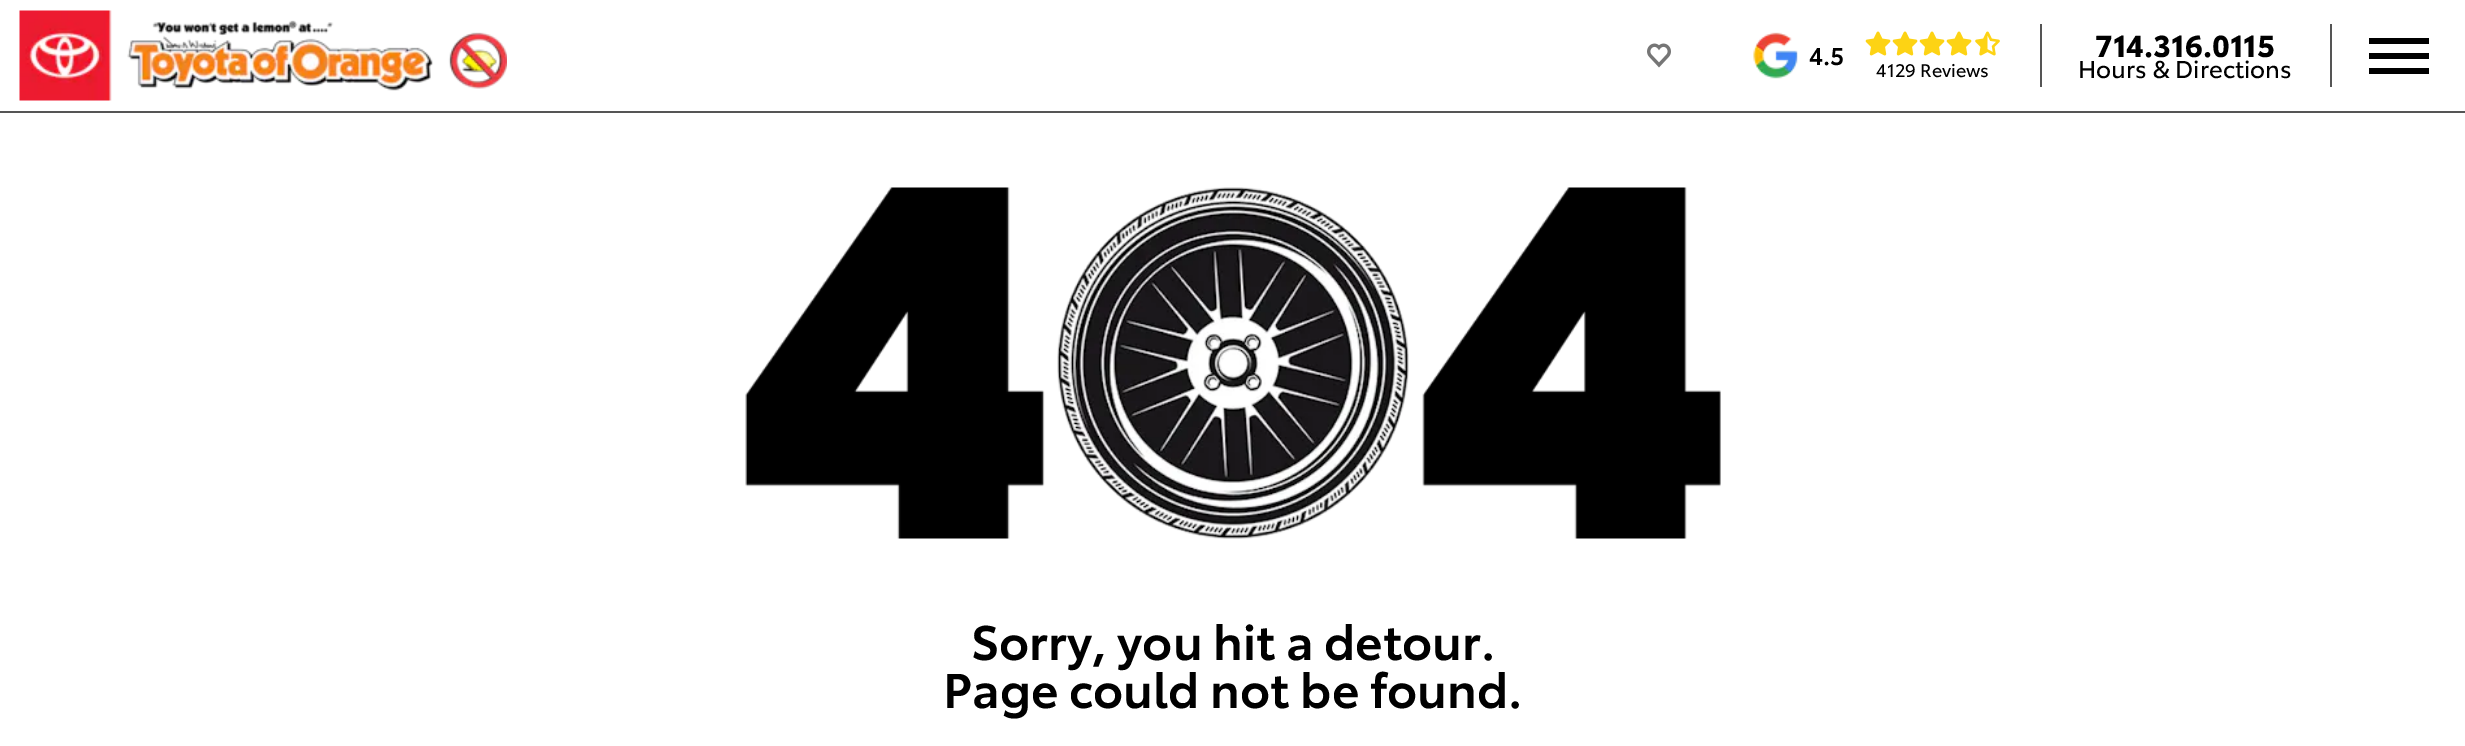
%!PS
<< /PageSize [2465 746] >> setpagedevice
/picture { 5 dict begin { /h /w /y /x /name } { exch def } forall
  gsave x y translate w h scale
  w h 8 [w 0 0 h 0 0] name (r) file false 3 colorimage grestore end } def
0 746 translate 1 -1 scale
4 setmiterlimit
1 setgray
0 0 2465 746 rectfill
0.333 setgray
0 111 2465 2 rectfill
(img1.rgb) 19 10 488 91 picture
(img2.rgb) 1647 43 24 25 picture
(img3.rgb) 1753 32 45 47 picture
/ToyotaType-SemiBold [24 0 0 -24 0 0] selectfont
0 setgray
1809 65 moveto (4.5) show
(img4.rgb) 1865 31 26 25 picture
(img4.rgb) 1892 31 26 25 picture
(img4.rgb) 1919 31 26 25 picture
(img4.rgb) 1946 31 26 25 picture
(img5.rgb) 1975 31 25 25 picture
/ToyotaType-Regular [18 0 0 -18 0 0] selectfont
1876 77 moveto (4129 Reviews) show
0.333 setgray
2330 24 2 63 rectfill
2040 24 2 63 rectfill
/ToyotaType-Bold [30 0 0 -30 0 0] selectfont
0 setgray
2095 57 moveto (714.316.0115) show
/ToyotaType-Regular [24 0 0 -24 0 0] selectfont
2078 78 moveto (Hours & Directions) show
2369 38 60 6 rectfill
2369 53 60 6 rectfill
2369 68 60 6 rectfill
(img6.rgb) 745 187 976 352 picture
/ToyotaType-SemiBold [48 0 0 -48 0 0] selectfont
971 660 moveto (Sorry, you hit a detour.) show
943 708 moveto (Page could not be found.) show
showpage
